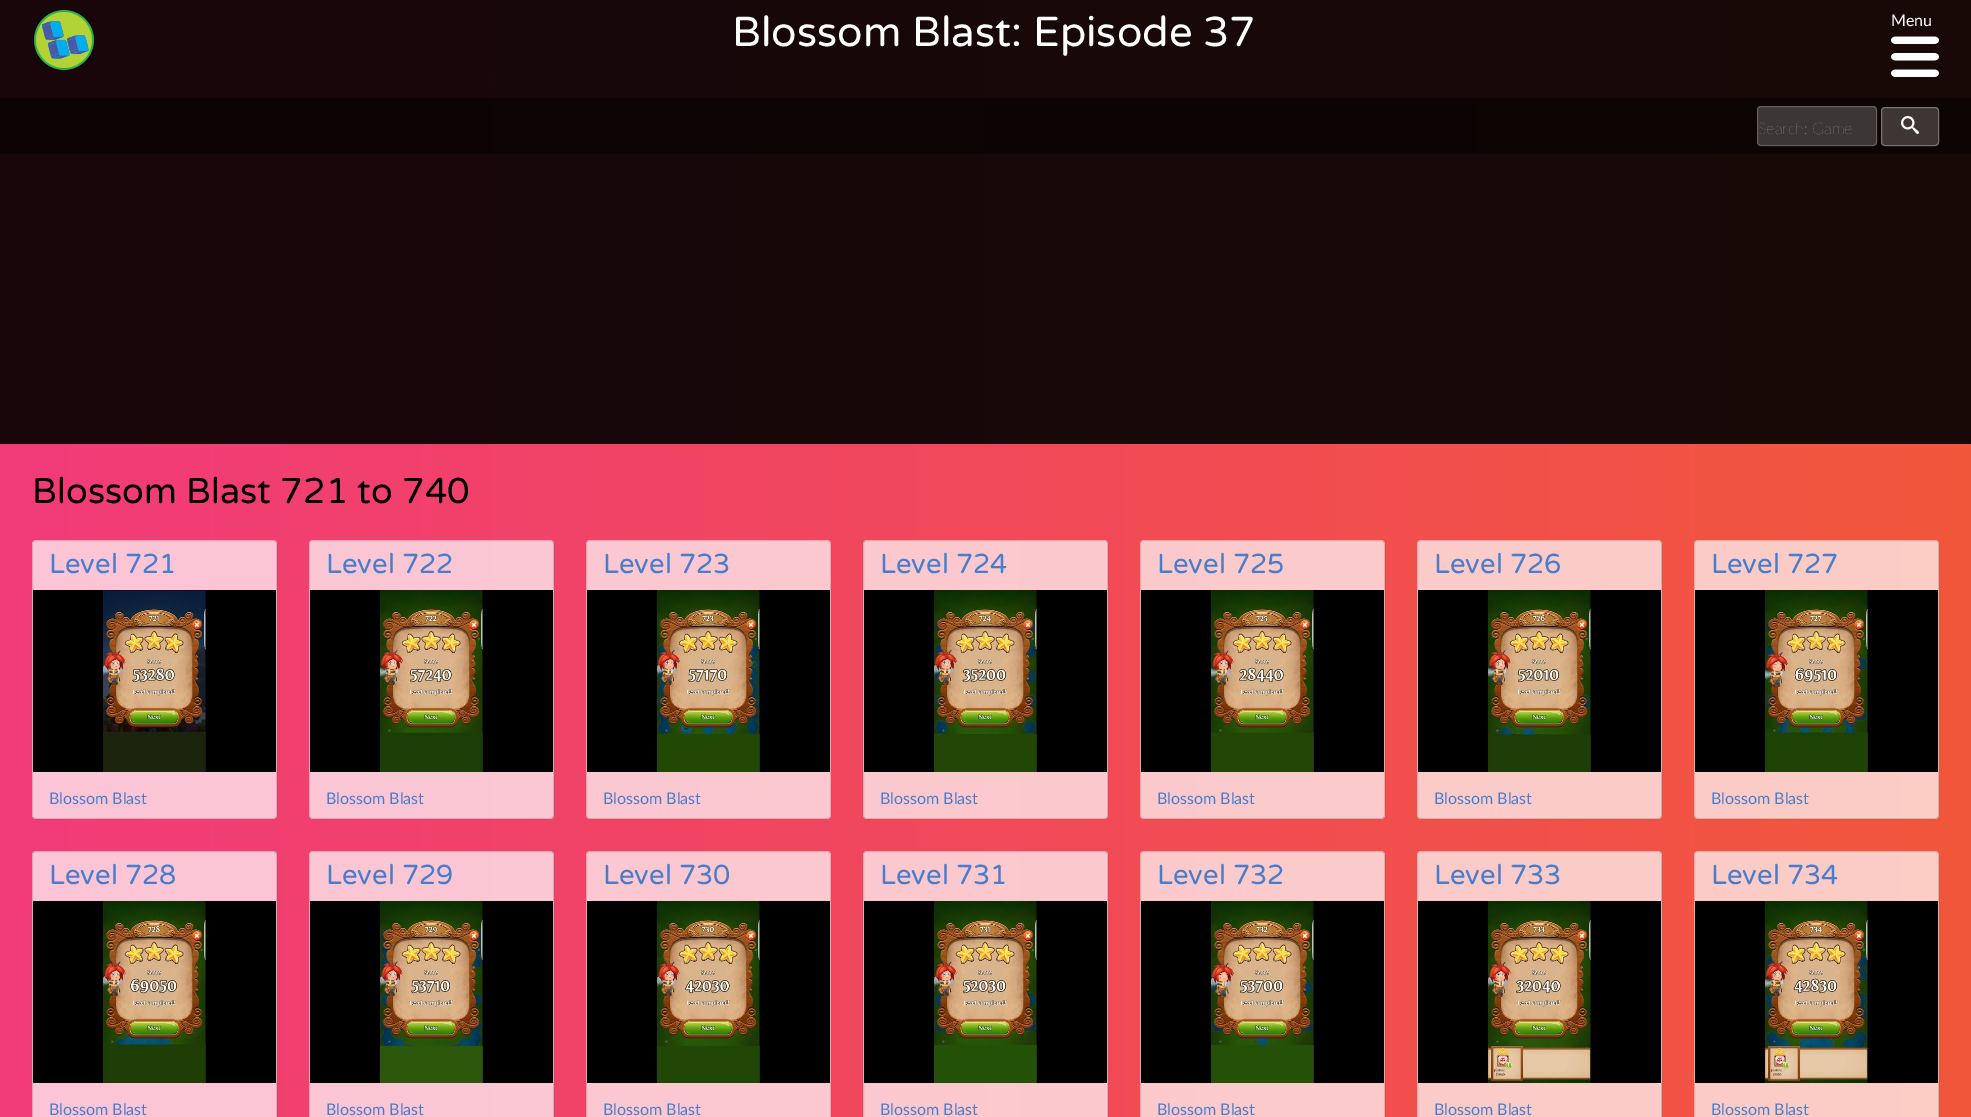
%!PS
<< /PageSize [1971 1117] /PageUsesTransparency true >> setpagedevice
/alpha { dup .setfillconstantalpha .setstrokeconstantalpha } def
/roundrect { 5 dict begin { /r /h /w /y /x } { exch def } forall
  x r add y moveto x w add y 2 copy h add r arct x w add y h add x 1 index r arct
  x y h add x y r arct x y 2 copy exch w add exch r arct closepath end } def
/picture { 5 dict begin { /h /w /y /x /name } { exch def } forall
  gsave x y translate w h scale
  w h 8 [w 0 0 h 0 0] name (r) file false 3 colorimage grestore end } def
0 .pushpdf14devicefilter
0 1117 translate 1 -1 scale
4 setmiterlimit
1 setgray
0 0 1971 1117 rectfill
gsave newpath 0 444 moveto 1971 444 lineto 1971 1117 lineto 0 1117 lineto closepath clip newpath
<< /ShadingType 2 /ColorSpace /DeviceRGB /Coords [0 978 1971 977] /Extend [true true] /Function << /FunctionType 2 /Domain [0 1] /C0 [0.945 0.231 0.478] /C1 [0.945 0.341 0.231] /N 1 >> >> shfill grestore
gsave newpath 0 0 moveto 1971 0 lineto 1971 444 lineto 0 444 lineto closepath clip newpath
<< /ShadingType 2 /ColorSpace /DeviceRGB /Coords [0 978 1971 977] /Extend [true true] /Function << /FunctionType 2 /Domain [0 1] /C0 [0.094 0.024 0.047] /C1 [0.094 0.035 0.024] /N 1 >> >> shfill grestore
gsave newpath 0 98 moveto 1971 98 lineto 1971 154 lineto 0 154 lineto closepath clip newpath
<< /ShadingType 2 /ColorSpace /DeviceRGB /Coords [0 978 1971 977] /Extend [true true] /Function << /FunctionType 2 /Domain [0 1] /C0 [0.047 0.012 0.024] /C1 [0.047 0.02 0.012] /N 1 >> >> shfill grestore
(img1.rgb) 34 10 60 60 picture
/VarelaRound-Regular [41.9 0 0 -41.9 0 0] selectfont
732 46 moveto (Blossom Blast: Episode 37) show
/Lato-Regular [16 0 0 -16 0 0] selectfont
1891 26 moveto (Menu) show
(img2.rgb) 1891 36 48 41 picture
0.239 0.212 0.212 setrgbcolor
1757 106 120 40 4 roundrect fill
0.2 alpha
1 setgray
1757.5 106.5 119 39 3.5 roundrect stroke
/Lato-ExtraLight [16 0 0 -16 0 0] selectfont
1 alpha
0.62 0.608 0.608 setrgbcolor
1758 134 moveto (Search: Game) show
0.239 0.212 0.208 setrgbcolor
1881 107 58 39 4 roundrect fill
0.3 alpha
1 setgray
1881.5 107.5 57 38 3.5 roundrect stroke
1 alpha
(img3.rgb) 1901 116 18 18 picture
/VarelaRound-Regular [35.9 0 0 -35.9 0 0] selectfont
0 setgray
32 503 moveto (Blossom Blast 721 to 740) show
0.7 alpha
1 setgray
32 540 245 279 4 roundrect fill
0.2 alpha
0.251 setgray
32.5 540.5 244 278 3.5 roundrect stroke
/VarelaRound-Regular [27.5 0 0 -27.5 0 0] selectfont
1 alpha
0.278 0.49 0.792 setrgbcolor
49 573 moveto (Level 721) show
(img4.rgb) 33 590 243 182 picture
/Lato-Regular [16 0 0 -16 0 0] selectfont
49 804 moveto (Blossom Blast) show
0.7 alpha
1 setgray
309 540 245 279 4 roundrect fill
0.2 alpha
0.251 setgray
309.5 540.5 244 278 3.5 roundrect stroke
/VarelaRound-Regular [27.5 0 0 -27.5 0 0] selectfont
1 alpha
0.278 0.49 0.792 setrgbcolor
326 573 moveto (Level 722) show
(img5.rgb) 310 590 243 182 picture
/Lato-Regular [16 0 0 -16 0 0] selectfont
326 804 moveto (Blossom Blast) show
0.7 alpha
1 setgray
586 540 245 279 4 roundrect fill
0.2 alpha
0.251 setgray
586.5 540.5 244 278 3.5 roundrect stroke
/VarelaRound-Regular [27.5 0 0 -27.5 0 0] selectfont
1 alpha
0.278 0.49 0.792 setrgbcolor
603 573 moveto (Level 723) show
(img6.rgb) 587 590 243 182 picture
/Lato-Regular [16 0 0 -16 0 0] selectfont
603 804 moveto (Blossom Blast) show
0.7 alpha
1 setgray
863 540 245 279 4 roundrect fill
0.2 alpha
0.251 setgray
863.5 540.5 244 278 3.5 roundrect stroke
/VarelaRound-Regular [27.5 0 0 -27.5 0 0] selectfont
1 alpha
0.278 0.49 0.792 setrgbcolor
880 573 moveto (Level 724) show
(img7.rgb) 864 590 243 182 picture
/Lato-Regular [16 0 0 -16 0 0] selectfont
880 804 moveto (Blossom Blast) show
0.7 alpha
1 setgray
1140 540 245 279 4 roundrect fill
0.2 alpha
0.251 setgray
1140.5 540.5 244 278 3.5 roundrect stroke
/VarelaRound-Regular [27.5 0 0 -27.5 0 0] selectfont
1 alpha
0.278 0.49 0.792 setrgbcolor
1157 573 moveto (Level 725) show
(img8.rgb) 1141 590 243 182 picture
/Lato-Regular [16 0 0 -16 0 0] selectfont
1157 804 moveto (Blossom Blast) show
0.7 alpha
1 setgray
1417 540 245 279 4 roundrect fill
0.2 alpha
0.251 setgray
1417.5 540.5 244 278 3.5 roundrect stroke
/VarelaRound-Regular [27.5 0 0 -27.5 0 0] selectfont
1 alpha
0.278 0.49 0.792 setrgbcolor
1434 573 moveto (Level 726) show
(img9.rgb) 1418 590 243 182 picture
/Lato-Regular [16 0 0 -16 0 0] selectfont
1434 804 moveto (Blossom Blast) show
0.7 alpha
1 setgray
1694 540 245 279 4 roundrect fill
0.2 alpha
0.251 setgray
1694.5 540.5 244 278 3.5 roundrect stroke
/VarelaRound-Regular [27.5 0 0 -27.5 0 0] selectfont
1 alpha
0.278 0.49 0.792 setrgbcolor
1711 573 moveto (Level 727) show
(img10.rgb) 1695 590 243 182 picture
/Lato-Regular [16 0 0 -16 0 0] selectfont
1711 804 moveto (Blossom Blast) show
0.7 alpha
1 setgray
32 851 245 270 4 roundrect fill
0.2 alpha
0.251 setgray
32.5 851.5 244 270 3.5 roundrect stroke
/VarelaRound-Regular [27.5 0 0 -27.5 0 0] selectfont
1 alpha
0.278 0.49 0.792 setrgbcolor
49 884 moveto (Level 728) show
(img11.rgb) 33 901 243 182 picture
/Lato-Regular [16 0 0 -16 0 0] selectfont
49 1115 moveto (Blossom Blast) show
0.7 alpha
1 setgray
309 851 245 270 4 roundrect fill
0.2 alpha
0.251 setgray
309.5 851.5 244 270 3.5 roundrect stroke
/VarelaRound-Regular [27.5 0 0 -27.5 0 0] selectfont
1 alpha
0.278 0.49 0.792 setrgbcolor
326 884 moveto (Level 729) show
(img12.rgb) 310 901 243 182 picture
/Lato-Regular [16 0 0 -16 0 0] selectfont
326 1115 moveto (Blossom Blast) show
0.7 alpha
1 setgray
586 851 245 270 4 roundrect fill
0.2 alpha
0.251 setgray
586.5 851.5 244 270 3.5 roundrect stroke
/VarelaRound-Regular [27.5 0 0 -27.5 0 0] selectfont
1 alpha
0.278 0.49 0.792 setrgbcolor
603 884 moveto (Level 730) show
(img13.rgb) 587 901 243 182 picture
/Lato-Regular [16 0 0 -16 0 0] selectfont
603 1115 moveto (Blossom Blast) show
0.7 alpha
1 setgray
863 851 245 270 4 roundrect fill
0.2 alpha
0.251 setgray
863.5 851.5 244 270 3.5 roundrect stroke
/VarelaRound-Regular [27.5 0 0 -27.5 0 0] selectfont
1 alpha
0.278 0.49 0.792 setrgbcolor
880 884 moveto (Level 731) show
(img14.rgb) 864 901 243 182 picture
/Lato-Regular [16 0 0 -16 0 0] selectfont
880 1115 moveto (Blossom Blast) show
0.7 alpha
1 setgray
1140 851 245 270 4 roundrect fill
0.2 alpha
0.251 setgray
1140.5 851.5 244 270 3.5 roundrect stroke
/VarelaRound-Regular [27.5 0 0 -27.5 0 0] selectfont
1 alpha
0.278 0.49 0.792 setrgbcolor
1157 884 moveto (Level 732) show
(img15.rgb) 1141 901 243 182 picture
/Lato-Regular [16 0 0 -16 0 0] selectfont
1157 1115 moveto (Blossom Blast) show
0.7 alpha
1 setgray
1417 851 245 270 4 roundrect fill
0.2 alpha
0.251 setgray
1417.5 851.5 244 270 3.5 roundrect stroke
/VarelaRound-Regular [27.5 0 0 -27.5 0 0] selectfont
1 alpha
0.278 0.49 0.792 setrgbcolor
1434 884 moveto (Level 733) show
(img16.rgb) 1418 901 243 182 picture
/Lato-Regular [16 0 0 -16 0 0] selectfont
1434 1115 moveto (Blossom Blast) show
0.7 alpha
1 setgray
1694 851 245 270 4 roundrect fill
0.2 alpha
0.251 setgray
1694.5 851.5 244 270 3.5 roundrect stroke
/VarelaRound-Regular [27.5 0 0 -27.5 0 0] selectfont
1 alpha
0.278 0.49 0.792 setrgbcolor
1711 884 moveto (Level 734) show
(img17.rgb) 1695 901 243 182 picture
/Lato-Regular [16 0 0 -16 0 0] selectfont
1711 1115 moveto (Blossom Blast) show
.poppdf14devicefilter showpage
